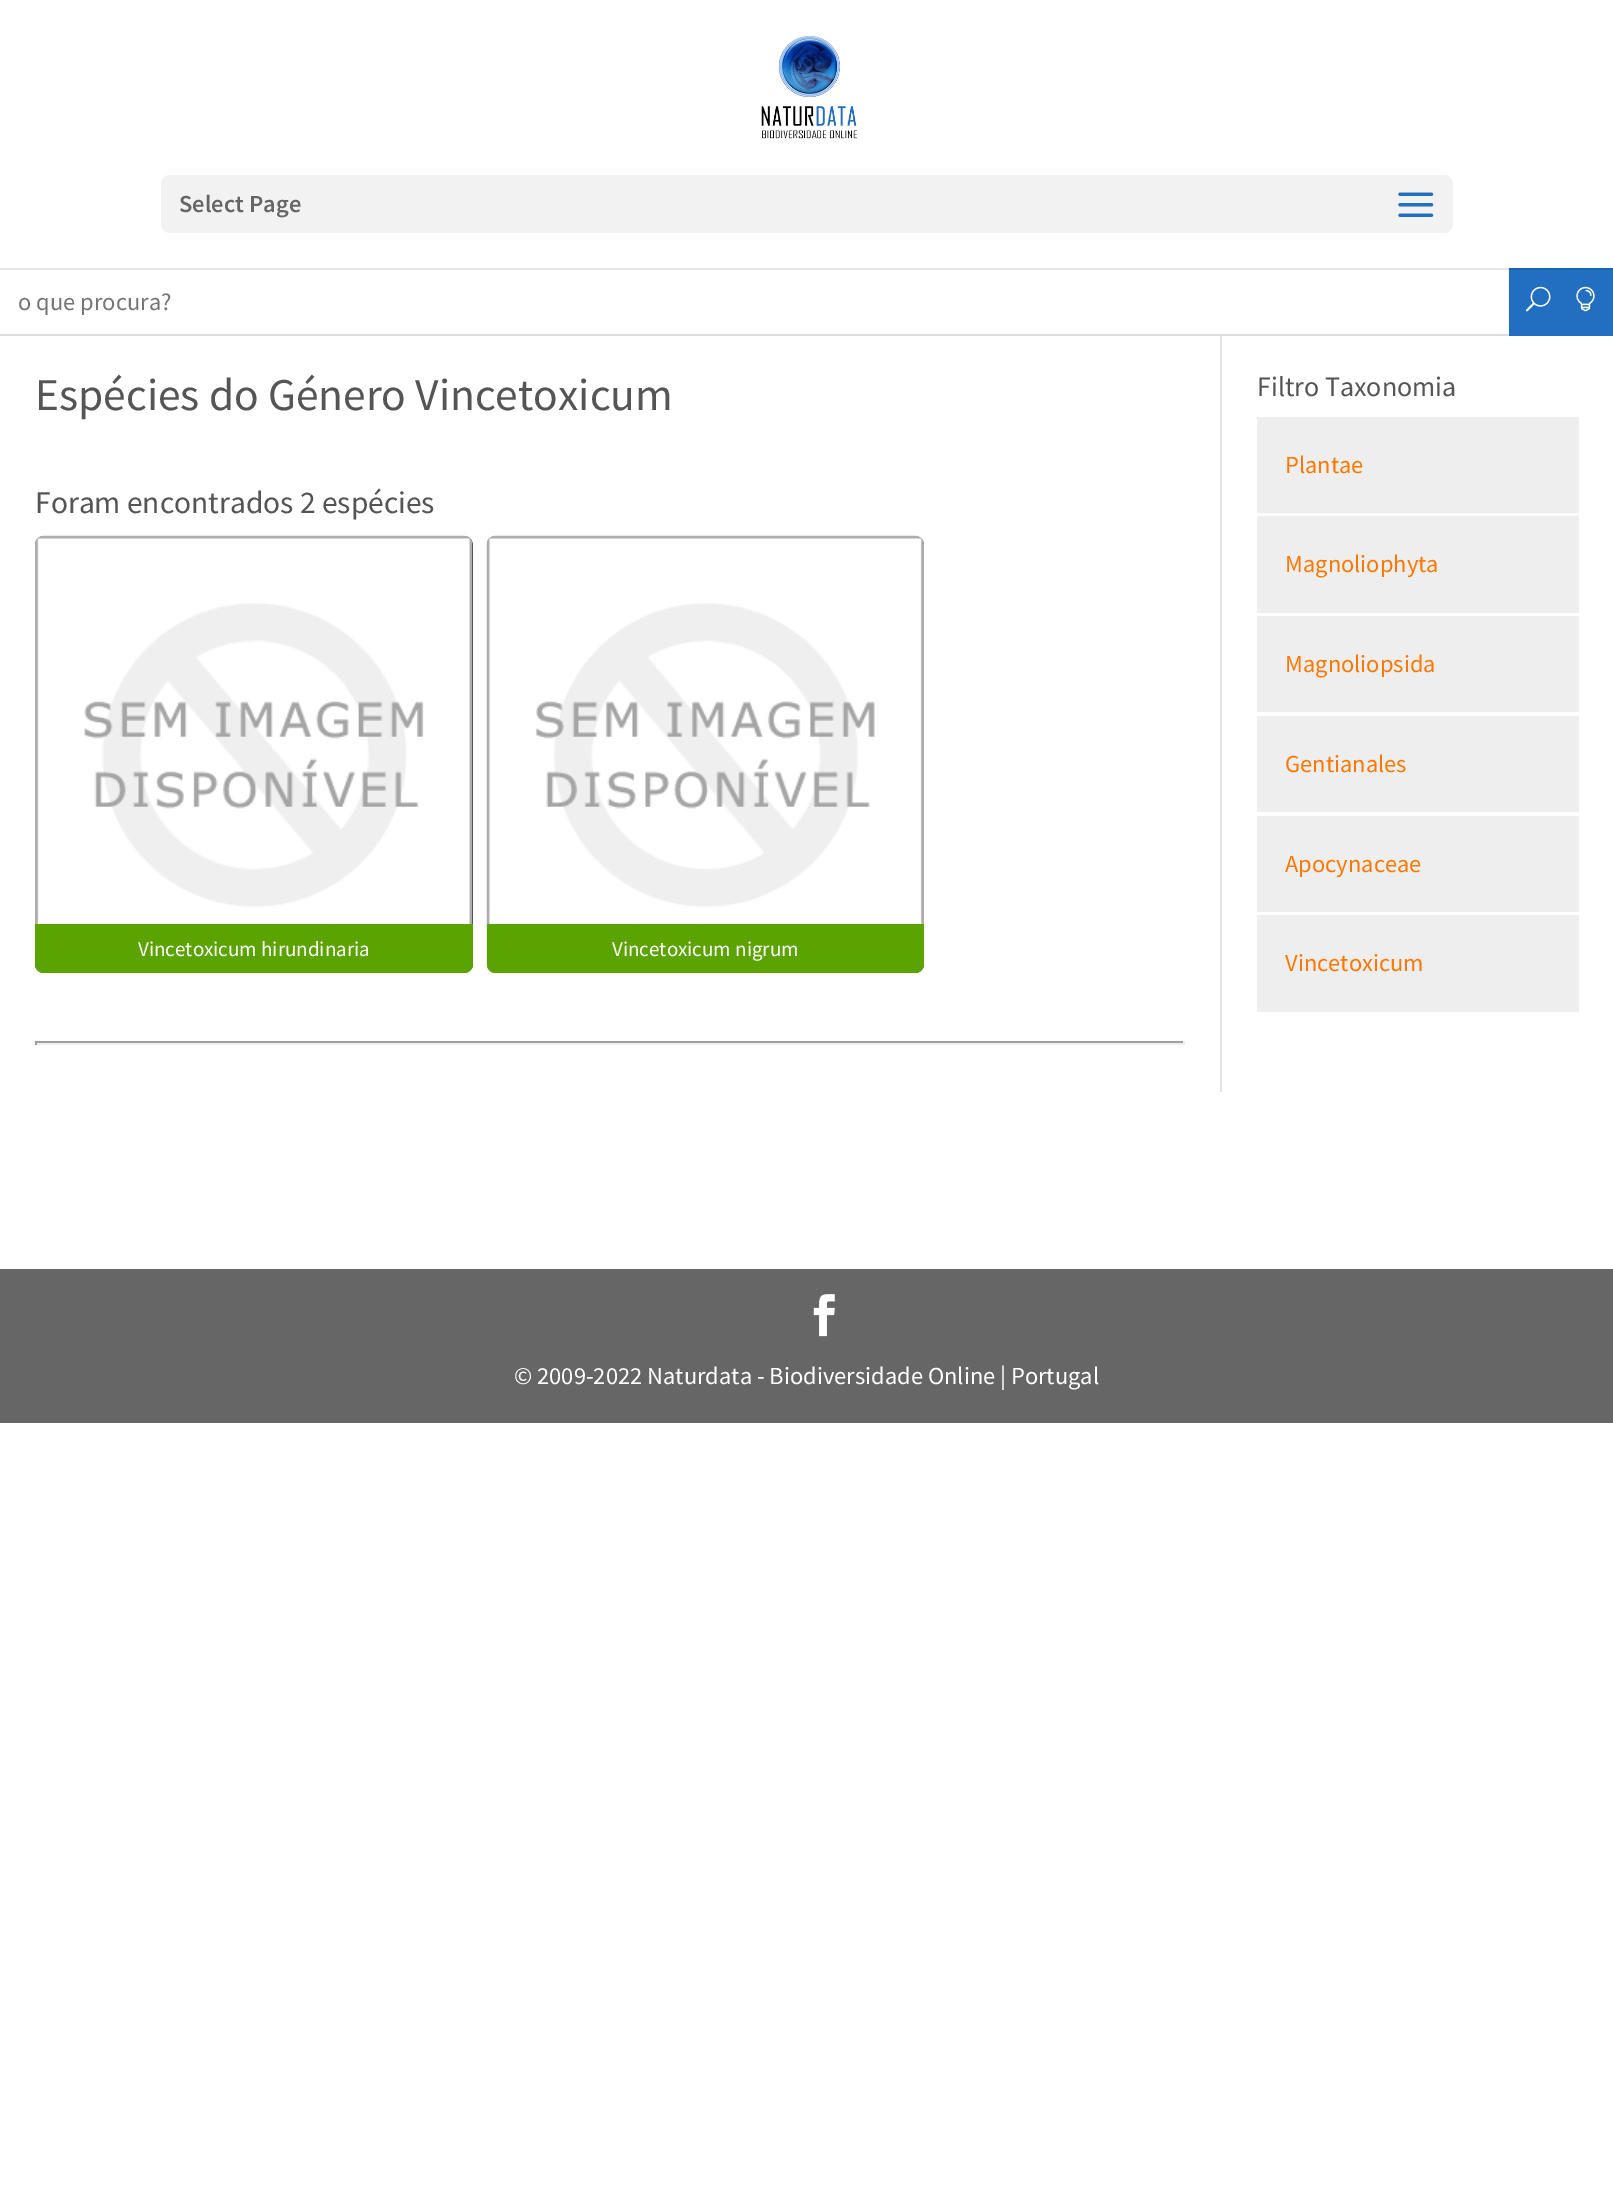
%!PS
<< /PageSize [1613 2195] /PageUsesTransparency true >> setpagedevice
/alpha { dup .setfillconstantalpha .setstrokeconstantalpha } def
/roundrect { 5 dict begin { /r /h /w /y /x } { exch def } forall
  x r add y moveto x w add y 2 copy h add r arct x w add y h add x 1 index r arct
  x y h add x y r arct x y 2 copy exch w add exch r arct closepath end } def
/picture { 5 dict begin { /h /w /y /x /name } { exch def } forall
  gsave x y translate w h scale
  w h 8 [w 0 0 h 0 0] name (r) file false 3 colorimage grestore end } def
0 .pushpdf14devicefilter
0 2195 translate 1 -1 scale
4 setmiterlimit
1 setgray
0 0 1613 2195 rectfill
0.133 0.431 0.753 setrgbcolor
1509 268 104 68 rectfill
0.1 alpha
0 setgray
newpath 0 268 moveto 0 270 lineto 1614 270 lineto 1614 2 lineto 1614 268 lineto closepath fill
1 alpha
(img1.rgb) 761 36 97 103 picture
0.949 setgray
161 175 1292 58 9 roundrect fill
/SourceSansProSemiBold-SemiBold [24.5 0 0 -24.5 0 0] selectfont
0.4 setgray
179 212 moveto (Select Page) show
(img2.rgb) 1398 192 36 25 picture
0.867 setgray
0 334 1509 2 rectfill
/SourceSansPro-Regular [24.5 0 0 -24.5 0 0] selectfont
0.459 setgray
18 310 moveto (o que procura?) show
(img3.rgb) 1525 286 26 26 picture
(img4.rgb) 1576 286 19 26 picture
/SourceSansPro-Regular [45.5 0 0 -45.5 0 0] selectfont
0.333 setgray
35 410 moveto (Espécies do Género Vincetoxicum) show
/SourceSansPro-Regular [31.5 0 0 -31.5 0 0] selectfont
35 513 moveto (Foram encontrados 2 espécies) show
0.2 setgray
35 536 438 437 9 roundrect fill
(img5.rgb) 35 535 438 438 picture
0.357 0.639 0.004 setrgbcolor
newpath 35 924 moveto 473 924 lineto 473 964 lineto 473 969 469 973 464 973 curveto 44 973 lineto 39 973 35 969 35 964 curveto closepath fill
/SourceSansPro-Regular [21 0 0 -21 0 0] selectfont
1 setgray
138 956 moveto (Vincetoxicum hirundinaria) show
(img6.rgb) 486 535 438 438 picture
0.357 0.639 0.004 setrgbcolor
newpath 487 924 moveto 924 924 lineto 924 964 lineto 924 969 920 973 915 973 curveto 496 973 lineto 491 973 487 969 487 964 curveto closepath fill
1 setgray
612 956 moveto (Vincetoxicum nigrum) show
0.624 setgray
35 1041 1150 2 rectfill
0.933 setgray
1183 1041 2 4 rectfill
35 1043 1150 2 rectfill
0.624 setgray
35 1041 2 4 rectfill
0.886 setgray
1220 336 2 756 rectfill
/SourceSansPro-Regular [28 0 0 -28 0 0] selectfont
0.333 setgray
1257 396 moveto (Filtro Taxonomia) show
0.933 setgray
1257 417 322 96 rectfill
/SourceSansPro-Regular [24.5 0 0 -24.5 0 0] selectfont
1 0.467 0 setrgbcolor
1285 473 moveto (Plantae) show
0.933 setgray
1257 516 322 97 rectfill
1 0.467 0 setrgbcolor
1285 572 moveto (Magnoliophyta) show
0.933 setgray
1257 616 322 96 rectfill
1 0.467 0 setrgbcolor
1285 672 moveto (Magnoliopsida) show
0.933 setgray
1257 716 322 96 rectfill
1 0.467 0 setrgbcolor
1285 772 moveto (Gentianales) show
0.933 setgray
1257 816 322 96 rectfill
1 0.467 0 setrgbcolor
1285 872 moveto (Apocynaceae) show
0.933 setgray
1257 915 322 97 rectfill
1 0.467 0 setrgbcolor
1285 971 moveto (Vincetoxicum) show
0.4 setgray
0 1269 1613 154 rectfill
(img7.rgb) 813 1294 22 43 picture
1 setgray
514 1384 moveto (© 2009-2022 Naturdata - Biodiversidade Online | Portugal) show
.poppdf14devicefilter showpage
